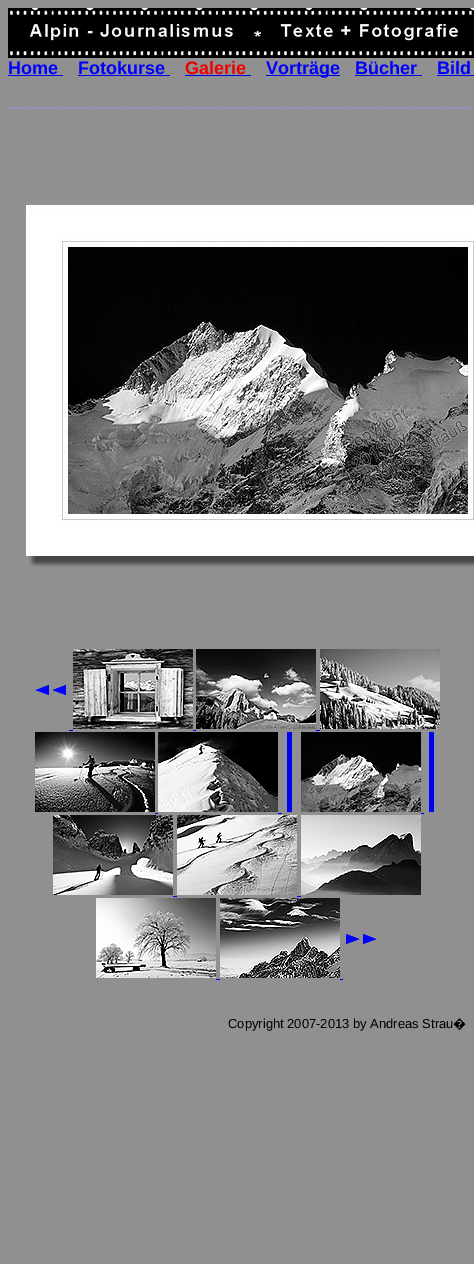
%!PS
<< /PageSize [474 1264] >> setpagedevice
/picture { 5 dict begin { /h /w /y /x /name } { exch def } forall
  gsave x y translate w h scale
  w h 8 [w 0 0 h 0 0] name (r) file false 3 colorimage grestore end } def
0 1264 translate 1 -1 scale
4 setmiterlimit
0.565 setgray
0 0 474 1264 rectfill
(img1.rgb) 8 8 466 50 picture
/LiberationSans-Bold [18 0 0 -18 0 0] selectfont
0 0 1 setrgbcolor
8 74 moveto (Home) show
0 0 0.933 setrgbcolor
8 75 55 1 rectfill
0 0 1 setrgbcolor
78 74 moveto (Fotokurse) show
0 0 0.933 setrgbcolor
78 75 92 1 rectfill
0.933 0 0 setrgbcolor
185 74 moveto (Galerie) show
0 0 0.933 setrgbcolor
185 75 66 1 rectfill
266 75 74 1 rectfill
0 0 1 setrgbcolor
266 74 moveto (Vorträge) show
355 74 moveto (Bücher) show
0 0 0.933 setrgbcolor
355 75 67 1 rectfill
0 0 1 setrgbcolor
437 74 moveto (Bild) show
0 0 0.933 setrgbcolor
437 75 37 1 rectfill
/LiberationSans-Regular [13 0 0 -13 0 0] selectfont
0.565 0.565 1 setrgbcolor
8 106 moveto (________________________________________________________________) show
(img2.rgb) 24 203 450 364 picture
(img3.rgb) 35 682 31 15 picture
(img4.rgb) 73 649 120 80 picture
(img5.rgb) 196 649 120 80 picture
(img6.rgb) 320 649 120 80 picture
0 0 0.933 setrgbcolor
69 730 4 1 rectfill
193 730 3 1 rectfill
316 730 4 1 rectfill
(img7.rgb) 35 732 120 80 picture
(img8.rgb) 158 732 120 80 picture
(img9.rgb) 285 732 11 80 picture
(img10.rgb) 301 732 120 80 picture
(img9.rgb) 427 732 11 80 picture
155 813 3 1 rectfill
278 813 4 1 rectfill
421 813 3 1 rectfill
(img11.rgb) 53 815 120 80 picture
(img12.rgb) 177 815 120 80 picture
(img13.rgb) 301 815 120 80 picture
173 896 4 1 rectfill
297 896 4 1 rectfill
(img14.rgb) 96 898 120 80 picture
(img15.rgb) 220 898 120 80 picture
(img16.rgb) 343 930 34 14 picture
216 979 4 1 rectfill
340 979 3 1 rectfill
0 setgray
228 1028 moveto (Copyright 2007-2013 by Andreas Strau) show
/NotoSans-Regular [13 0 0 -13 0 0] selectfont
453 1028 moveto (�) show
showpage
